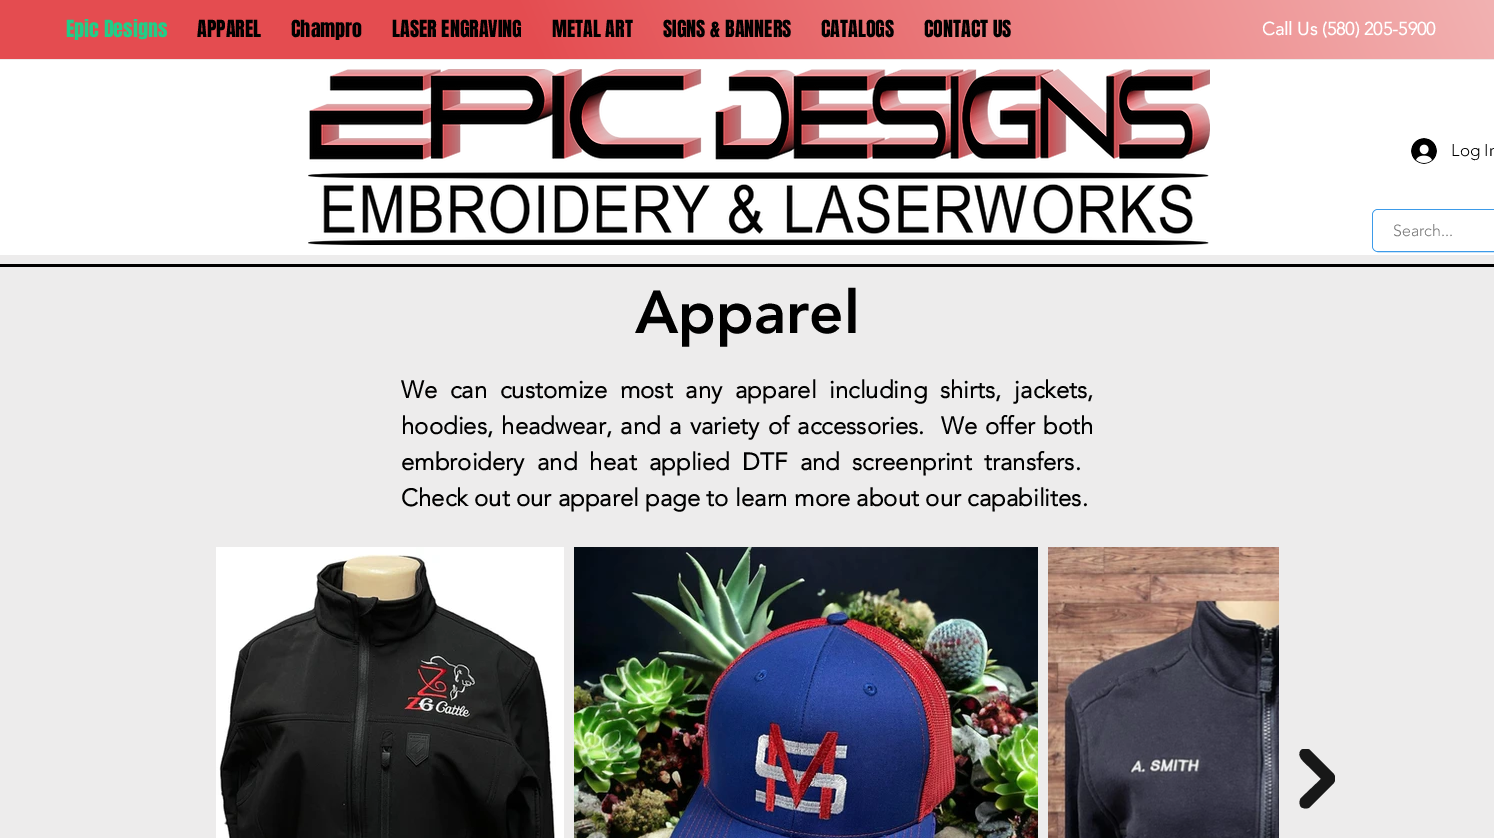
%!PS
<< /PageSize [1494 838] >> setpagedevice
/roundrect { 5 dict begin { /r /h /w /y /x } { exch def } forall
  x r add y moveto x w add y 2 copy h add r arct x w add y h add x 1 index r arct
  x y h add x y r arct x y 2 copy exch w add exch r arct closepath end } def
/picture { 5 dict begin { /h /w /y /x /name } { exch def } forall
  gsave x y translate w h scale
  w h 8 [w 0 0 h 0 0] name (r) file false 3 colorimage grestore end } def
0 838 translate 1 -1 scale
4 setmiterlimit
0.929 0.925 0.925 setrgbcolor
0 0 1494 838 rectfill
gsave newpath 0 0 moveto 1494 0 lineto 1494 59 lineto 0 59 lineto closepath clip newpath
<< /ShadingType 2 /ColorSpace /DeviceRGB /Coords [103 303 1391 -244] /Extend [true true] /Function << /FunctionType 3 /Domain [0 1] /Functions [<< /FunctionType 2 /Domain [0 1] /C0 [0.894 0.298 0.314] /C1 [0.894 0.298 0.314] /N 1 >> << /FunctionType 2 /Domain [0 1] /C0 [0.894 0.298 0.314] /C1 [0.949 0.698 0.698] /N 1 >>] /Bounds [0.35] /Encode [0 1 0 1] >> >> shfill grestore
/Anton-Regular [20 0 0 -20 0 0] selectfont
0.125 0.808 0.533 setrgbcolor
66 37 moveto (Epic Designs) show
0 setgray
197 37 moveto (APPAREL) show
291 37 moveto (Champro) show
392 37 moveto (LASER ENGRAVING) show
552 37 moveto (METAL ART) show
663 37 moveto (SIGNS & BANNERS) show
821 37 moveto (CATALOGS) show
924 37 moveto (CONTACT US) show
/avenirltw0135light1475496-Bold [18 0 0 -18 0 0] selectfont
1 setgray
1262 35 moveto (Call Us \(580\) 205-5900) show
0 60 1494 195 rectfill
(img1.rgb) 308 69 902 176 picture
(img2.rgb) 1411 138 26 26 picture
/avenirltw0135light1475496-Light [17 0 0 -17 0 0] selectfont
0 setgray
1451 156 moveto (Log In) show
0.239 0.608 0.914 setrgbcolor
1372.5 209.5 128 42 5.5 roundrect stroke
1 setgray
1373 210 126 41 5 roundrect fill
/avenirltw0135light1475496-Light [16 0 0 -16 0 0] selectfont
0.471 setgray
1393 236 moveto (Search...) show
0 setgray
0 264 1494 3 rectfill
/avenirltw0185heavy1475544-Black [60 0 0 -60 0 0] selectfont
635 333 moveto (Apparel) show
/avenirltw0135light1475496-Bold [24 0 0 -24 0 0] selectfont
401 398 moveto 6.5 0 32 (We can customize most any apparel including shirts, jackets,) widthshow
401 434 moveto 2 0 32 (hoodies, headwear, and a variety of accessories.  We offer both) widthshow
401 470 moveto 6 0 32 (embroidery and heat applied DTF and screenprint transfers.) widthshow
401 506 moveto (Check out our apparel page to learn more about our capabilites.) show
(img3.rgb) 216 547 348 291 picture
(img4.rgb) 574 547 464 291 picture
(img5.rgb) 1048 547 231 291 picture
gsave
1299 749 36 60 rectclip
0.094 setgray
newpath 1301 750 moveto 1304 748 1307 748 1310 750 curveto 1333 773 lineto 1336 776 1336 781 1333 784 curveto 1310 807 lineto 1308 809 1304 809 1301 807 curveto 1299 804 1299 801 1301 798 curveto 1321 779 lineto 1308 766 lineto 1304 762 1296 756 1301 750 curveto closepath fill
grestore
showpage
